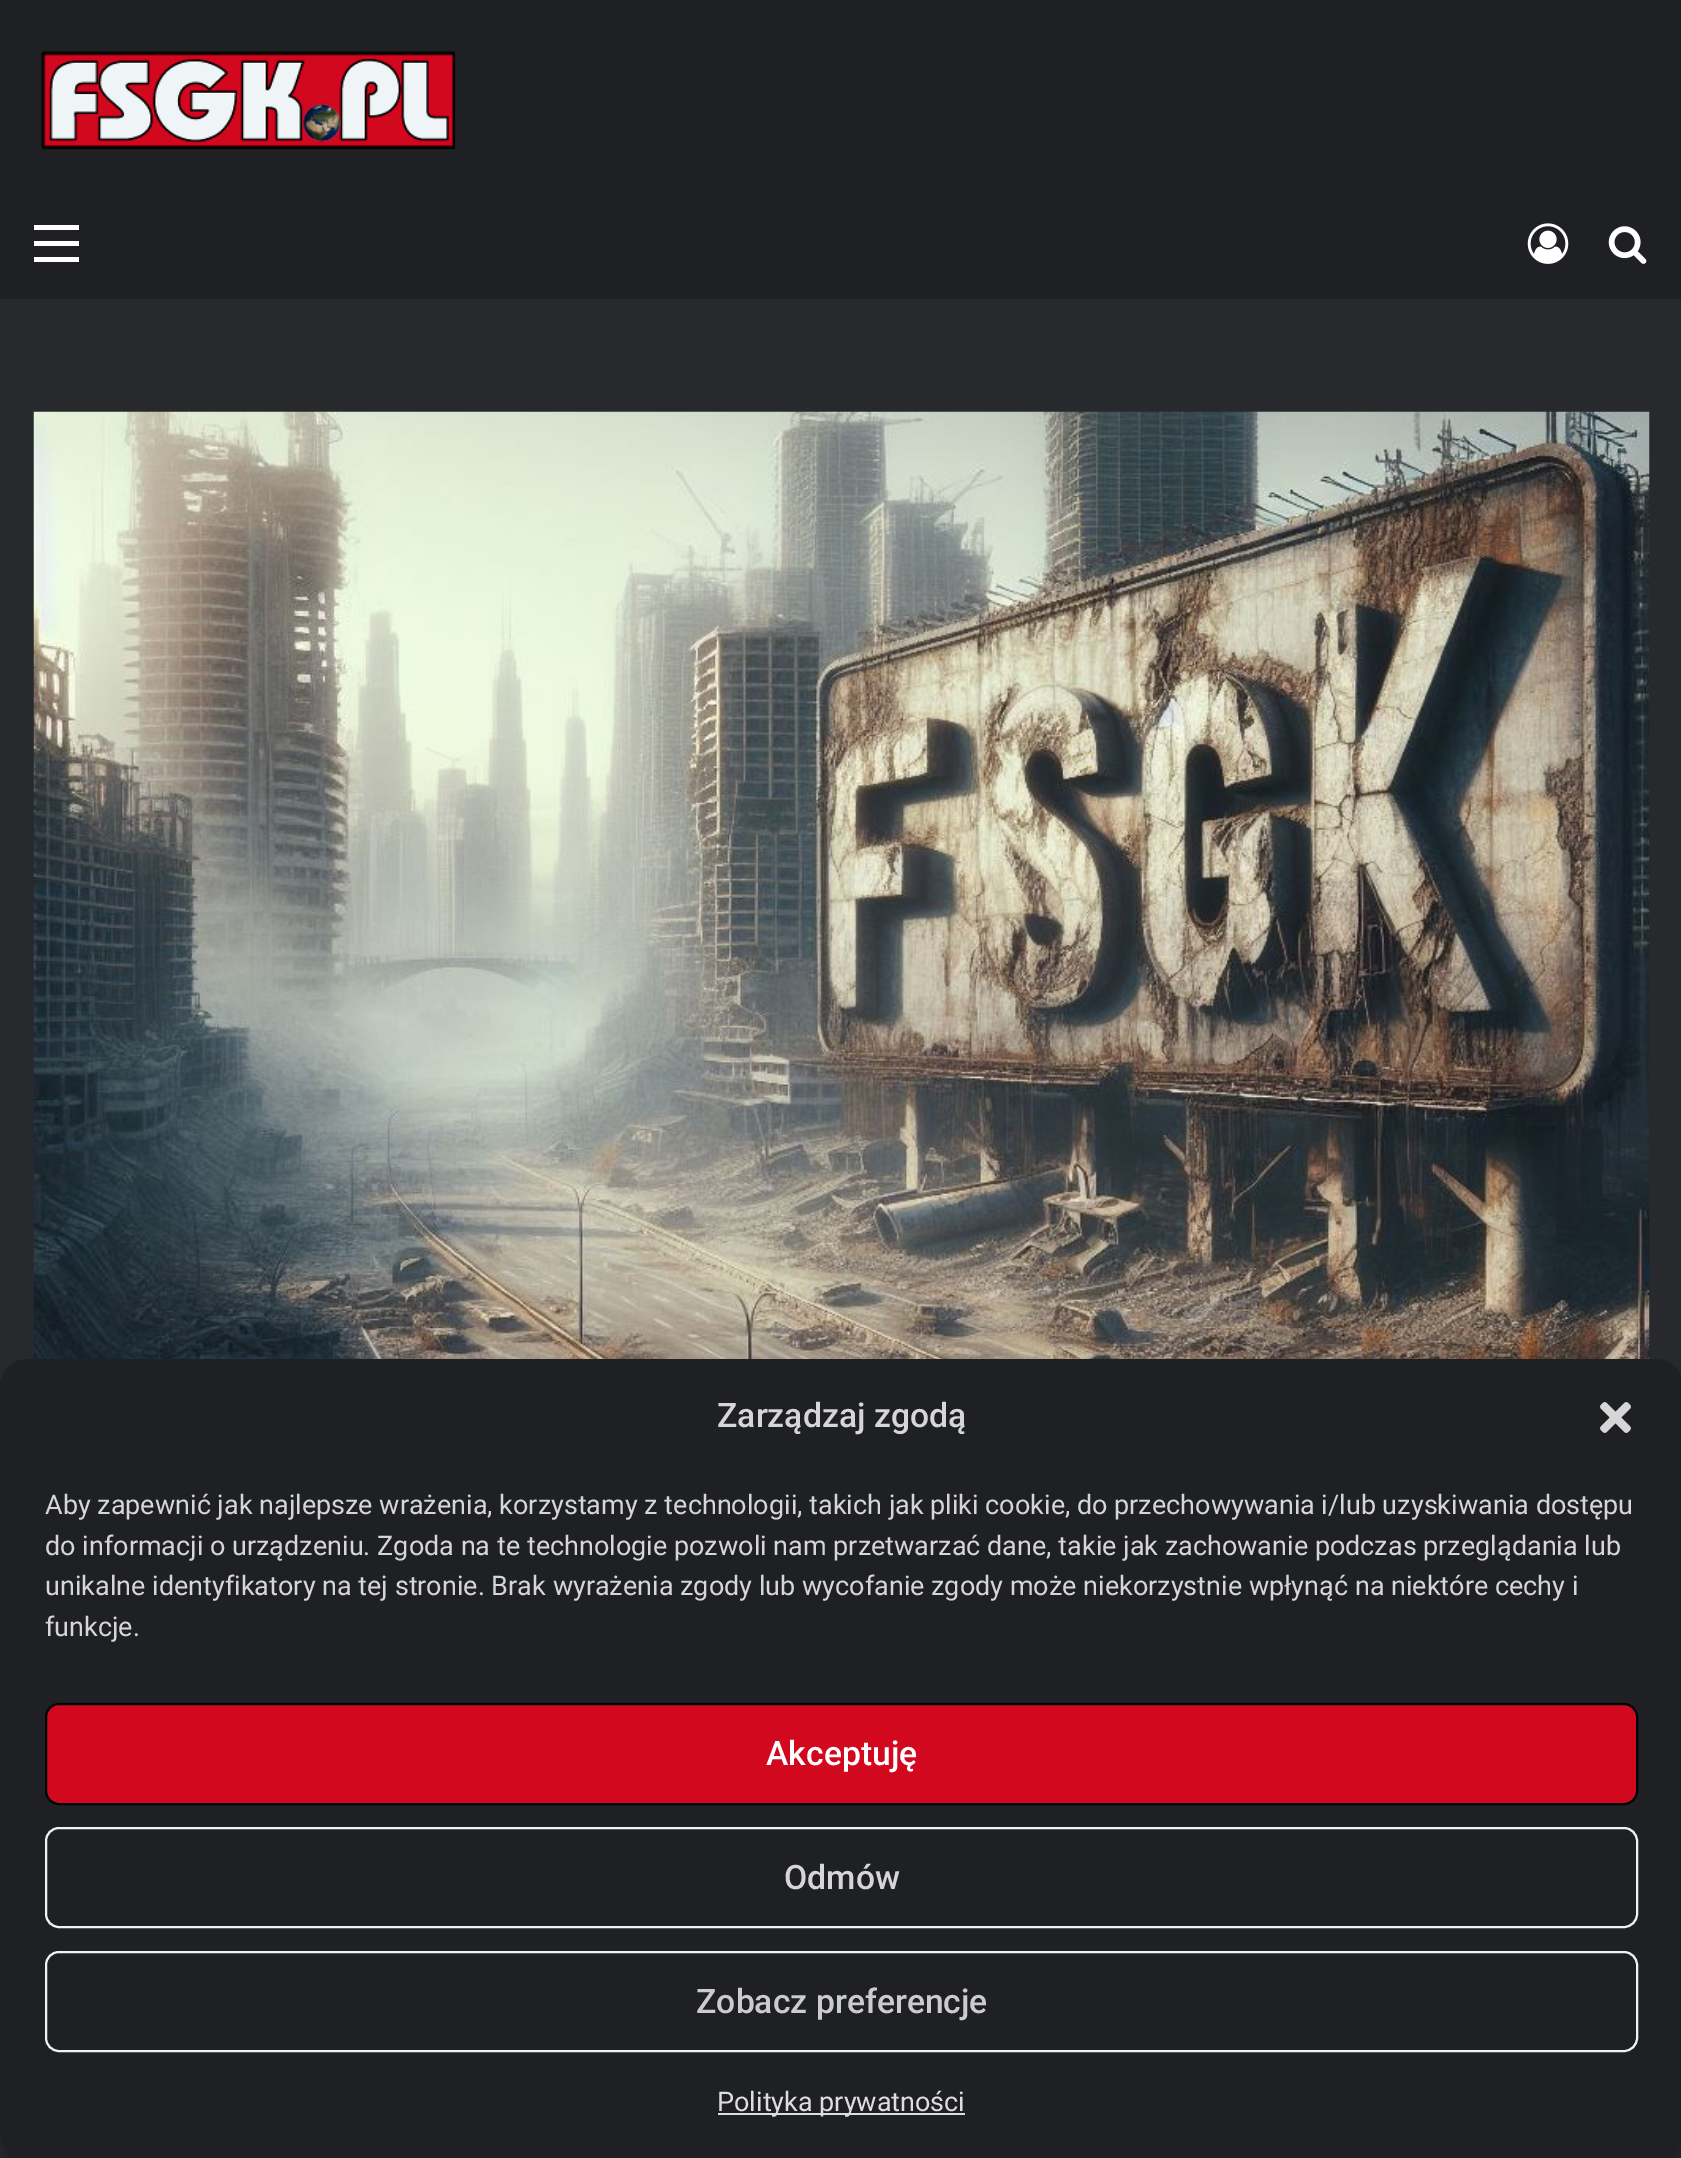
%!PS
<< /PageSize [1681 2158] /PageUsesTransparency true >> setpagedevice
/alpha { dup .setfillconstantalpha .setstrokeconstantalpha } def
/roundrect { 5 dict begin { /r /h /w /y /x } { exch def } forall
  x r add y moveto x w add y 2 copy h add r arct x w add y h add x 1 index r arct
  x y h add x y r arct x y 2 copy exch w add exch r arct closepath end } def
/shadow { 12 dict begin { /a /b /q /h /w /y /x } { exch def } forall gsave /was 0 def
  9 -2 -9 { dup b mul 4 div /e exch def 1 sub .425 mul 2.718 exch exp 1 add a .99 .min exch div /now exch def
    1 1 now sub 1 was sub div sub alpha /was now def
    w h .min e 2 mul add 0 gt { x e sub y e sub w e 2 mul add h e 2 mul add
      q e add b .6 mul add w h .min 2 div e add .min 0 .max roundrect fill } if } for grestore end } def
/picture { 5 dict begin { /h /w /y /x /name } { exch def } forall
  gsave x y translate w h scale
  w h 8 [w 0 0 h 0 0] name (r) file false 3 colorimage grestore end } def
0 .pushpdf14devicefilter
0 2158 translate 1 -1 scale
4 setmiterlimit
0.153 0.161 0.176 setrgbcolor
0 0 1681 2158 rectfill
0.122 0.125 0.141 setrgbcolor
0 0 1681 299 rectfill
(img1.rgb) 41 51 415 99 picture
1 setgray
34 241 45 5 rectfill
34 225 45 5 rectfill
34 257 45 5 rectfill
(img2.rgb) 1527 223 42 41 picture
(img3.rgb) 1608 226 39 38 picture
(img4.rgb) 33 411 1617 948 picture
0 setgray
0 1373 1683 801 27 7 0.23 shadow
0.122 0.125 0.141 setrgbcolor
0 1359 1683 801 27 roundrect fill
/Roboto-Medium [33.75 0 0 -33.75 0 0] selectfont
0.839 setgray
717 1427 moveto (Zarządzaj zgodą) show
(img5.rgb) 1600 1402 31 31 picture
/Roboto-Regular [27 0 0 -27 0 0] selectfont
45 1514 moveto (Aby zapewnić jak najlepsze wrażenia, korzystamy z technologii, takich jak pliki cookie, do przechowywania i/lub uzyskiwania dostępu) show
45 1555 moveto (do informacji o urządzeniu. Zgoda na te technologie pozwoli nam przetwarzać dane, takie jak zachowanie podczas przeglądania lub) show
45 1595 moveto (unikalne identyfikatory na tej stronie. Brak wyrażenia zgody lub wycofanie zgody może niekorzystnie wpłynąć na niektóre cechy i) show
45 1636 moveto (funkcje.) show
0.824 0.031 0.122 setrgbcolor
46 1704 1591 100 13 roundrect gsave fill grestore
0 0.012 0.024 setrgbcolor
2 setlinewidth
stroke
/Roboto-Medium [33.75 0 0 -33.75 0 0] selectfont
1 setgray
766 1765 moveto (Akceptuję) show
0.949 setgray
46 1828 1591 99 13 roundrect stroke
0.839 setgray
784 1889 moveto (Odmów) show
0.949 setgray
46 1952 1591 99 13 roundrect stroke
0.804 0.8 0.8 setrgbcolor
696 2013 moveto (Zobacz preferencje) show
0.871 setgray
718 2113 247 2 rectfill
/Roboto-Regular [27 0 0 -27 0 0] selectfont
717 2111 moveto (Polityka prywatności) show
.poppdf14devicefilter showpage
